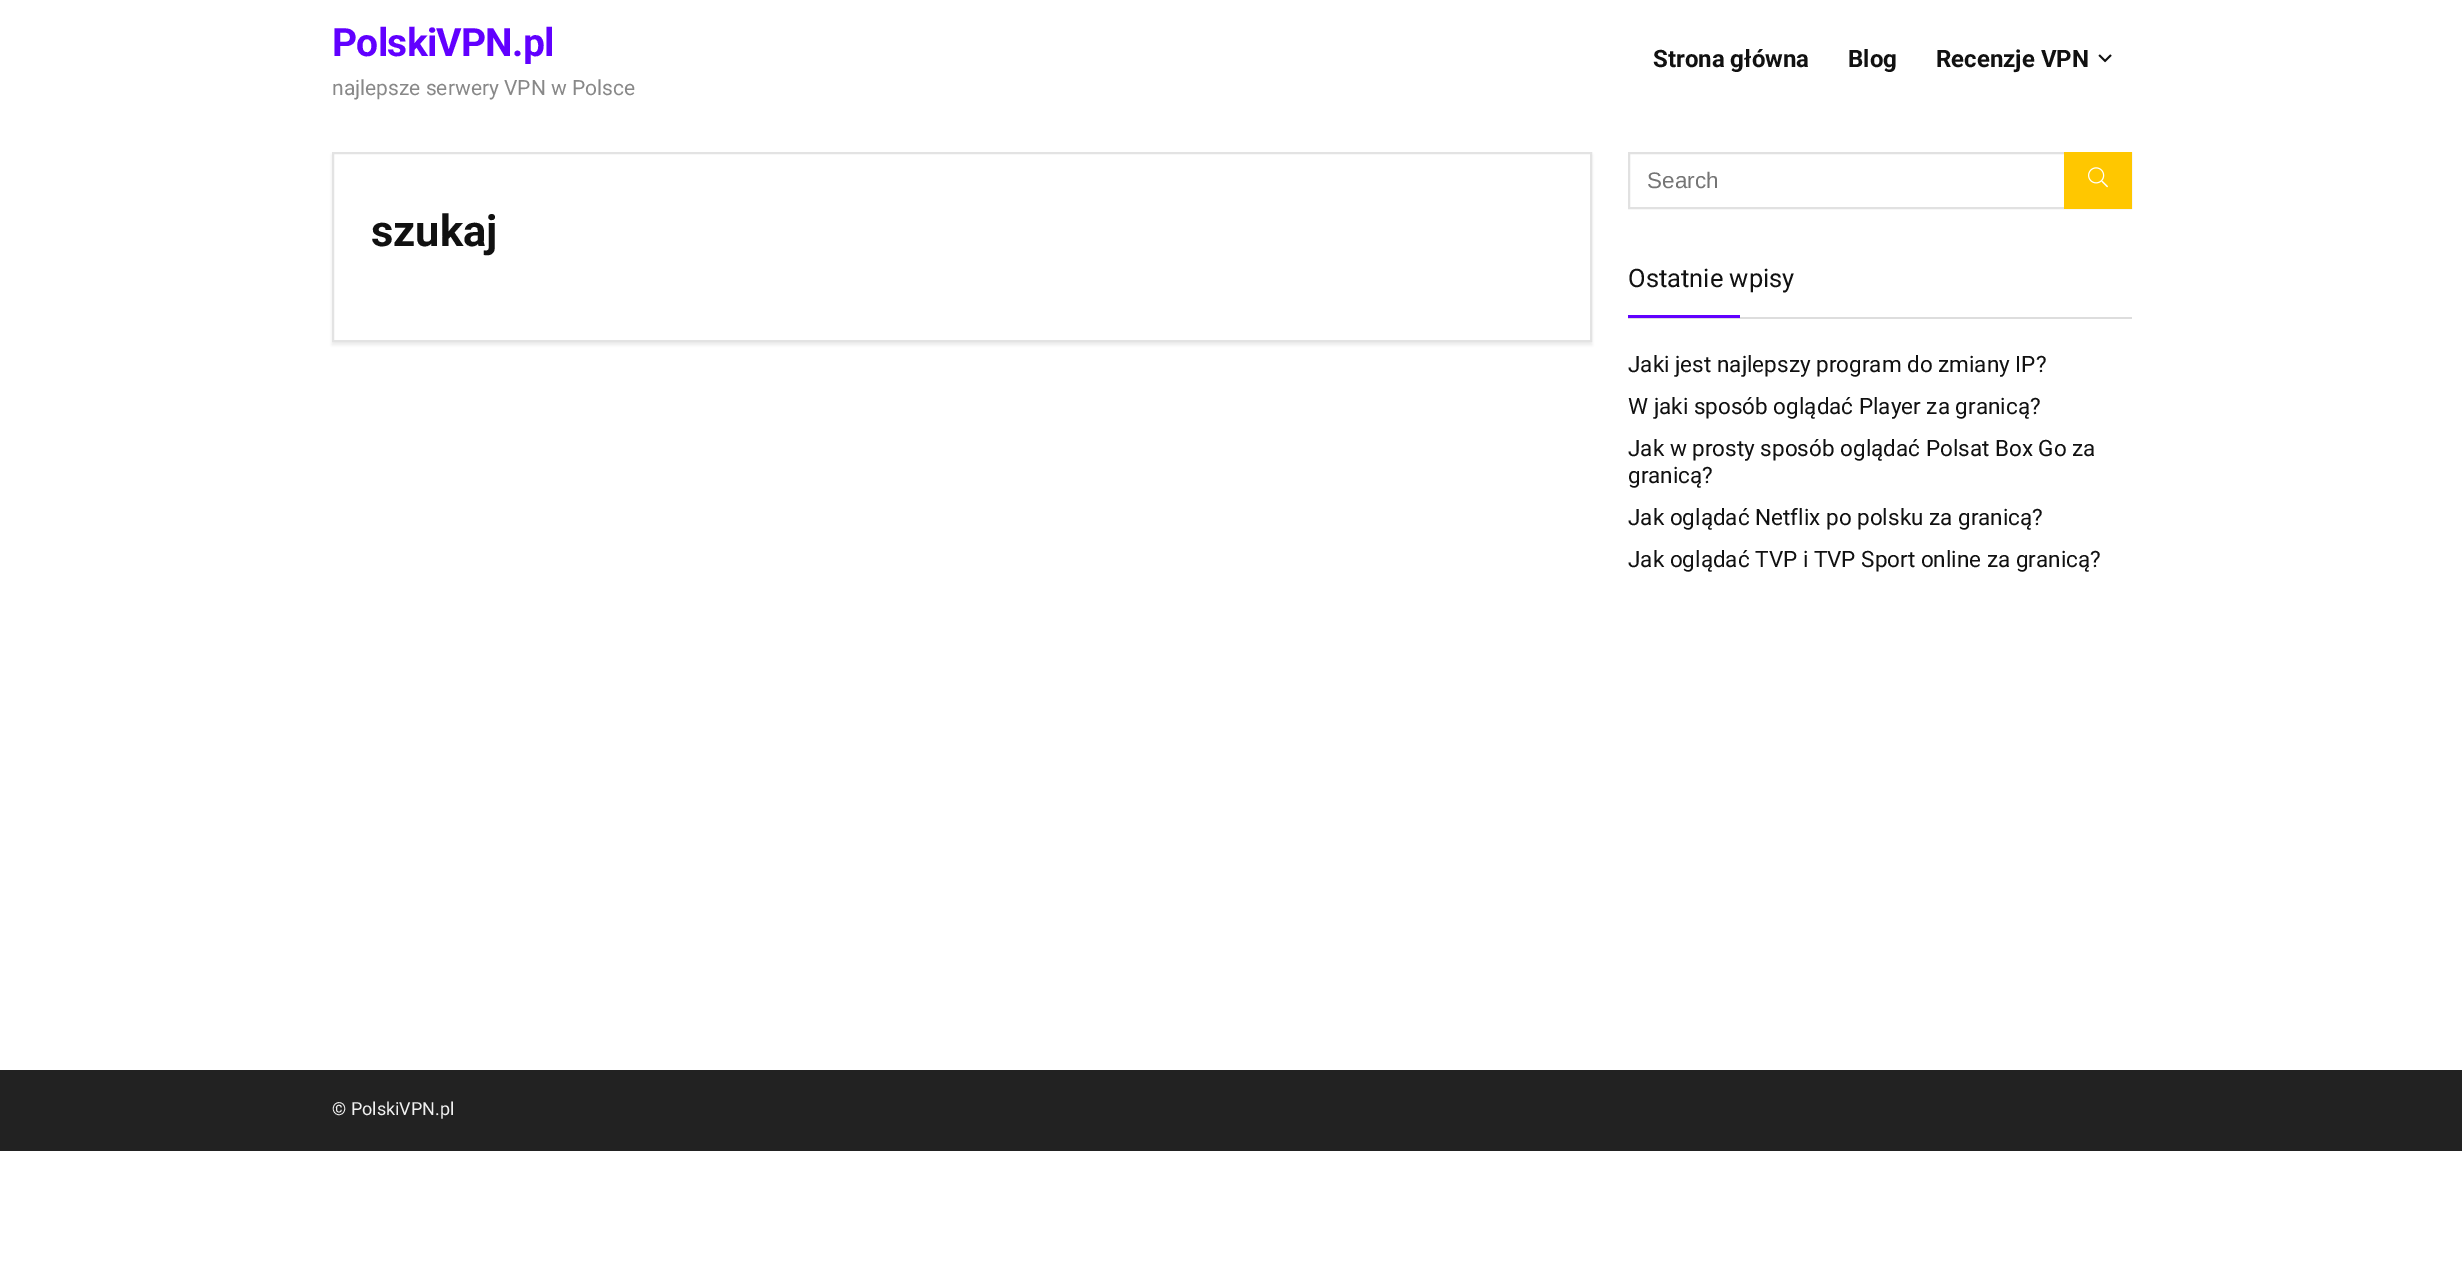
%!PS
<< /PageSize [2462 1267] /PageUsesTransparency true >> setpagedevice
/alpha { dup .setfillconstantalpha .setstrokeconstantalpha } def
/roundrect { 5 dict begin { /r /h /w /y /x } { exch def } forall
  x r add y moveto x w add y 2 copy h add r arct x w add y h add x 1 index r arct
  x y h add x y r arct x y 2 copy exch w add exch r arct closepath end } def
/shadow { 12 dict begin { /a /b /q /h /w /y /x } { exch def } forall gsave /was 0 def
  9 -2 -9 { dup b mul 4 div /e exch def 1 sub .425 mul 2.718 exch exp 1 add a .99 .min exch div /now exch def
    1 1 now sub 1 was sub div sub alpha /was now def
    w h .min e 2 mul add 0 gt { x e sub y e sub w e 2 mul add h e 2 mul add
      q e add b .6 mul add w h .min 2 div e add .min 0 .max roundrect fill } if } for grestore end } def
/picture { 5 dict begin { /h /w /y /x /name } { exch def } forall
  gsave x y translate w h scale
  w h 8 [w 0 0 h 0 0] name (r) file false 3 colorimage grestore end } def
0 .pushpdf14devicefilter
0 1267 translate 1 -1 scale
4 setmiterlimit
1 setgray
0 0 2462 1267 rectfill
/Roboto-Bold [39 0 0 -39 0 0] selectfont
0.38 0 1 setrgbcolor
332 56 moveto -0.75 0 (PolskiVPN.pl) ashow
/Roboto-Regular [21 0 0 -21 0 0] selectfont
0.533 setgray
332 95 moveto (najlepsze serwery VPN w Polsce) show
/Roboto-Bold [24 0 0 -24 0 0] selectfont
0.067 setgray
1653 67 moveto (Strona główna) show
1848 67 moveto (Blog) show
1936 67 moveto (Recenzje VPN) show
(img1.rgb) 2098 54 14 9 picture
0.925 setgray
332 155 1260 190 0 1.5 1 shadow
1 setgray
newpath 333 153 moveto 1591 153 lineto 1591 341 lineto 333 341 lineto closepath gsave fill grestore
0.89 setgray
2 setlinewidth
stroke
/Roboto-Bold [43.5 0 0 -43.5 0 0] selectfont
0.067 setgray
371 246 moveto (szukaj) show
0.882 setgray
1629 153 502 55 rectstroke
/LiberationSans-Regular [22.5 0 0 -22.5 0 0] selectfont
0.459 setgray
1647 188 moveto (Search) show
1 0.78 0 setrgbcolor
2064 152 68 57 rectfill
(img2.rgb) 2088 167 20 21 picture
0.867 setgray
1628 317 504 2 rectfill
/Roboto-Regular [25.5 0 0 -25.5 0 0] selectfont
0.067 setgray
1628 287 moveto (Ostatnie wpisy) show
0.38 0 1 setrgbcolor
1628 315 112 3 rectfill
/Roboto-Regular [22.5 0 0 -22.5 0 0] selectfont
0.067 setgray
1628 372 moveto (Jaki jest najlepszy program do zmiany IP?) show
1628 414 moveto (W jaki sposób oglądać Player za granicą?) show
1628 456 moveto (Jak w prosty sposób oglądać Polsat Box Go za) show
1628 483 moveto (granicą?) show
1628 525 moveto (Jak oglądać Netflix po polsku za granicą?) show
1628 567 moveto (Jak oglądać TVP i TVP Sport online za granicą?) show
0.133 setgray
0 1070 2462 81 rectfill
/Roboto-Regular [18 0 0 -18 0 0] selectfont
0.945 setgray
332 1115 moveto (© PolskiVPN.pl) show
.poppdf14devicefilter showpage
